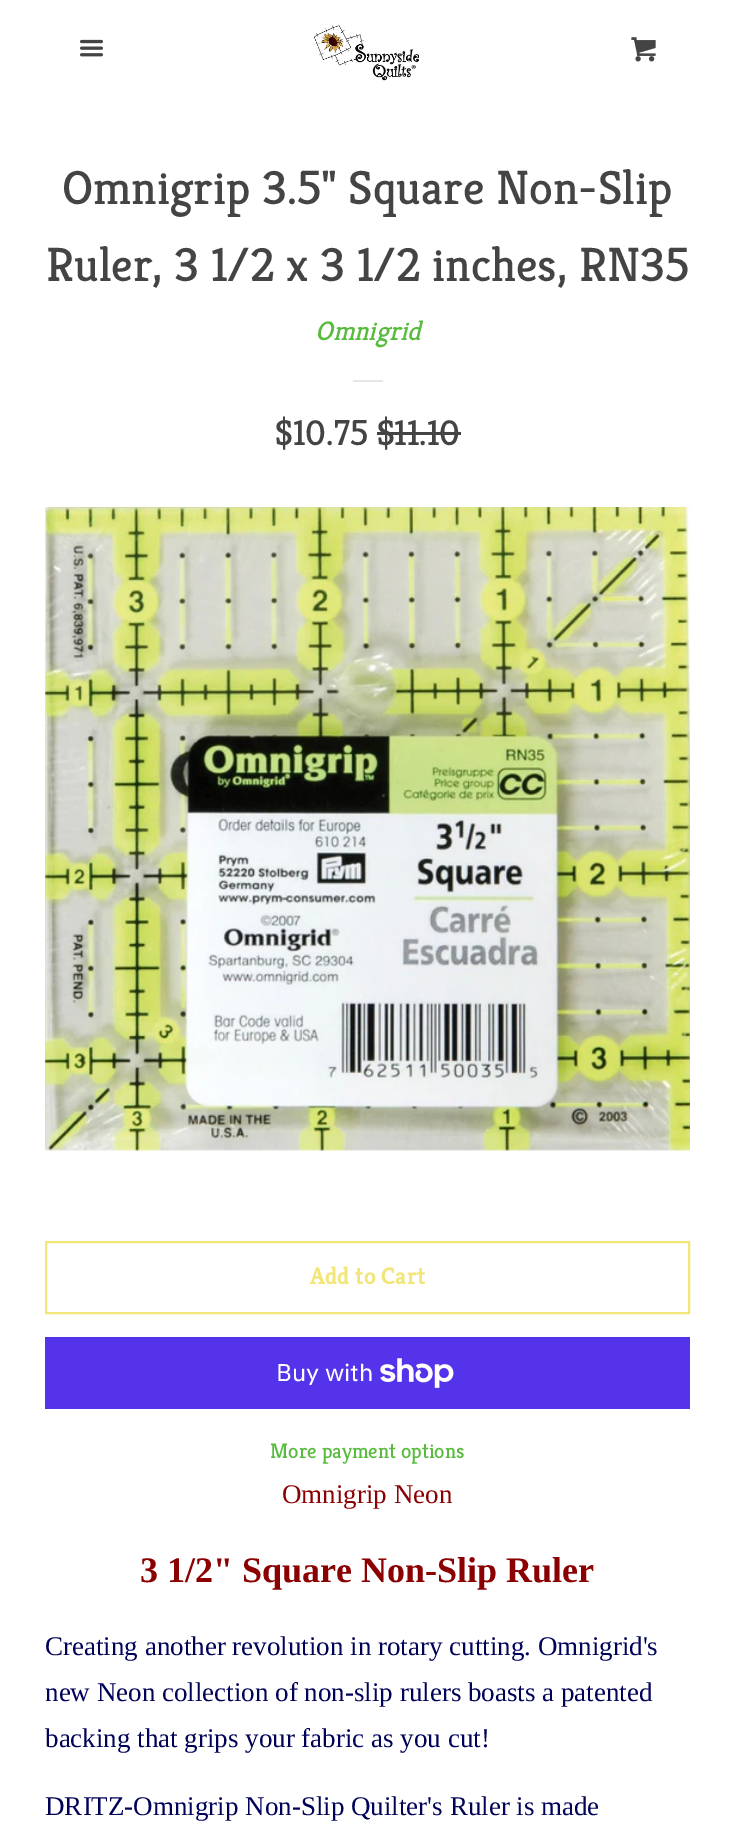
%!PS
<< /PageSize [735 1844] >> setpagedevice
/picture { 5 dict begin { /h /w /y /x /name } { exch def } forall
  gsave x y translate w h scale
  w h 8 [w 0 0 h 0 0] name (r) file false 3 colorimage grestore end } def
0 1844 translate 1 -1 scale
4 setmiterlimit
1 setgray
0 0 735 1844 rectfill
(img1.rgb) 80 39 23 18 picture
(img2.rgb) 313 25 106 56 picture
(img3.rgb) 631 37 25 25 picture
/Kreon-Regular [48 0 0 -48 0 0] selectfont
0.267 setgray
62 204 moveto (Omnigrip 3.5" Square Non-Slip) show
46 281 moveto (Ruler, 3 1/2 x 3 1/2 inches, RN35) show
/Kreon-Italic [27 0 0 -27 0 0] selectfont
0.341 0.733 0.243 setrgbcolor
315 340 moveto (Omnigrid) show
0.906 setgray
353 380 30 2 rectfill
/Kreon-Regular [36 0 0 -36 0 0] selectfont
0.267 setgray
275 445 moveto ($10.75 $11.10) show
377 432 84 3 rectfill
(img4.rgb) 45 507 645 644 picture
0.949 0.902 0.475 setrgbcolor
2 setlinewidth
46 1242 643 71 rectstroke
/Kreon-Bold [24 0 0 -24 0 0] selectfont
310 1284 moveto (Add to Cart) show
0.329 0.2 0.922 setrgbcolor
45 1337 645 72 rectfill
/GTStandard-Regular [24 0 0 -24 0 0] selectfont
1 setgray
276 1381 moveto (Buy with) show
(img5.rgb) 380 1358 74 30 picture
/Kreon-Regular [21 0 0 -21 0 0] selectfont
0.341 0.733 0.243 setrgbcolor
270 1458 moveto (More payment options) show
/LiberationSerif-Regular [27 0 0 -27 0 0] selectfont
0.545 0 0 setrgbcolor
282 1503 moveto (Omnigrip Neon) show
/LiberationSerif-Bold [36 0 0 -36 0 0] selectfont
140 1582 moveto (3 1/2" Square Non-Slip Ruler) show
/LiberationSerif-Regular [27 0 0 -27 0 0] selectfont
0 0.008 0.345 setrgbcolor
45 1655 moveto (Creating another revolution in rotary cutting. Omnigrid's) show
45 1701 moveto (new Neon collection of non-slip rulers boasts a patented) show
45 1747 moveto (backing that grips your fabric as you cut!) show
45 1815 moveto (DRITZ-Omnigrip Non-Slip Quilter's Ruler is made) show
showpage
